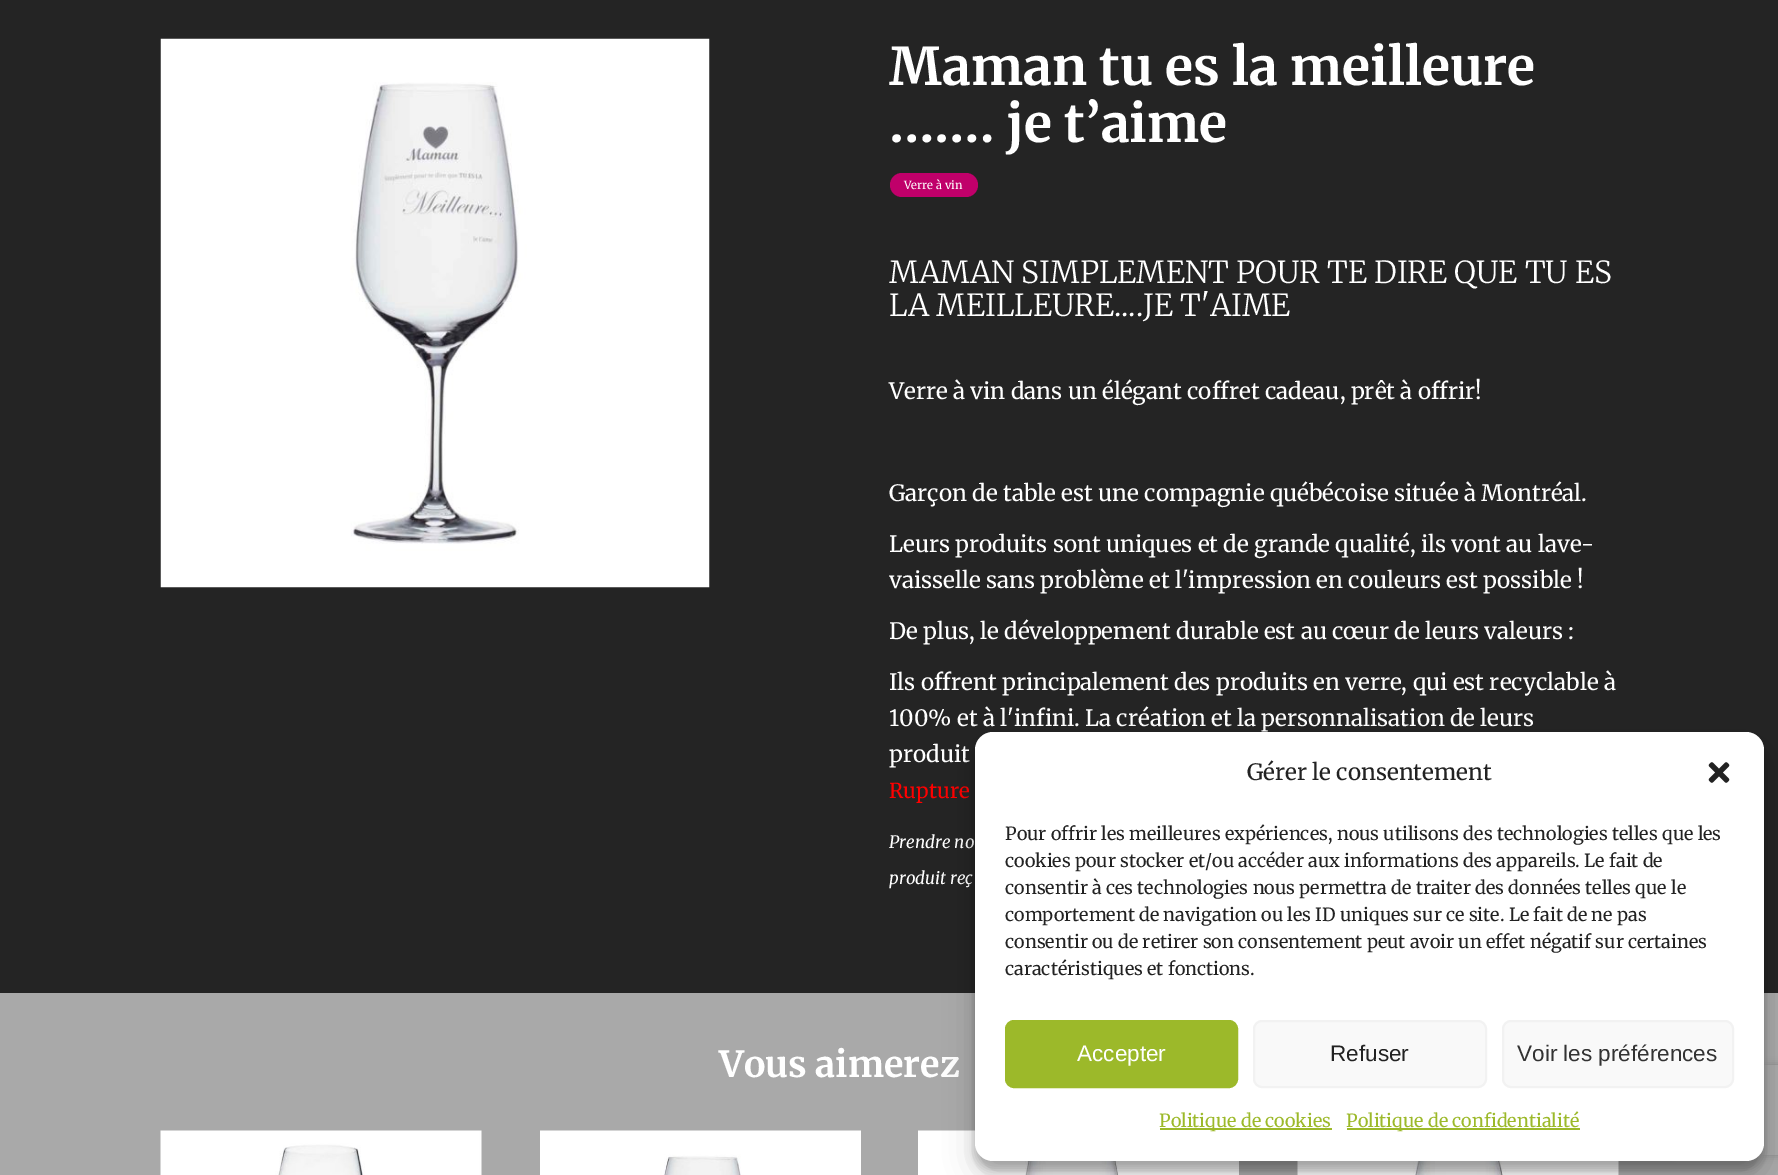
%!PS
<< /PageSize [1778 1175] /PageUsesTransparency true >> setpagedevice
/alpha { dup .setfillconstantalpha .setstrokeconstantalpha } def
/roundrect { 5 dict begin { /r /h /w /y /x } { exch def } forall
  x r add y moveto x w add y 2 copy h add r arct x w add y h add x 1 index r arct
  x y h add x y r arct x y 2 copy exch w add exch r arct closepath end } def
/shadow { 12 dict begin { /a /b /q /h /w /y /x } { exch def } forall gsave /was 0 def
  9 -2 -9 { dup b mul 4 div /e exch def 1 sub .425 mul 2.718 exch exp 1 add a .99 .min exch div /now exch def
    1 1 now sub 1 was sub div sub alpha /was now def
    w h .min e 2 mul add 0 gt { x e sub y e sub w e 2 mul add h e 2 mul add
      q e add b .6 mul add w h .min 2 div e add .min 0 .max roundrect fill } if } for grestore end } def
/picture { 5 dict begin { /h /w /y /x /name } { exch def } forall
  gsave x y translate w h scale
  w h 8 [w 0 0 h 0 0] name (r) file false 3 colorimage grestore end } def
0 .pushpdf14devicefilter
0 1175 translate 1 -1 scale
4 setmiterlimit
0.141 setgray
0 0 1778 1175 rectfill
(img1.rgb) 160 38 550 550 picture
/Merriweather-Bold [51.75 0 0 -51.75 0 0] selectfont
1 setgray
889 85 moveto (Maman tu es la meilleure) show
889 142 moveto (……. je t’aime) show
0.753 0 0.416 setrgbcolor
890 173 88 24 12 roundrect fill
/Merriweather-Regular [11.25 0 0 -11.25 0 0] selectfont
1 setgray
904 189 moveto (Verre à vin) show
/Merriweather-Light [30.4 0 0 -30.4 0 0] selectfont
889 283 moveto (MAMAN SIMPLEMENT POUR TE DIRE QUE TU ES) show
889 316 moveto (LA MEILLEURE....JE T'AIME) show
/Merriweather-Regular [22.5 0 0 -22.5 0 0] selectfont
889 399 moveto (Verre à vin dans un élégant coffret cadeau, prêt à offrir!) show
889 501 moveto (Garçon de table est une compagnie québécoise située à Montréal.) show
889 552 moveto (Leurs produits sont uniques et de grande qualité, ils vont au lave-) show
889 588 moveto (vaisselle sans problème et l'impression en couleurs est possible !) show
889 639 moveto (De plus, le développement durable est au cœur de leurs valeurs :) show
889 690 moveto (Ils offrent principalement des produits en verre, qui est recyclable à) show
889 726 moveto (100% et à l'infini. La création et la personnalisation de leurs) show
889 762 moveto (produit) show
/Merriweather-Regular [20.5 0 0 -20.5 0 0] selectfont
1 0 0 setrgbcolor
889 798 moveto (Rupture) show
/Merriweather-Italic [17 0 0 -17 0 0] selectfont
1 setgray
889 848 moveto (Prendre no) show
889 884 moveto (produit reç) show
0.663 setgray
0 993 1778 182 rectfill
/Merriweather-Bold [36 0 0 -36 0 0] selectfont
1 setgray
719 1077 moveto (Vous aimerez) show
(img2.rgb) 160 1130 322 45 picture
(img3.rgb) 540 1130 321 45 picture
(img4.rgb) 918 1130 321 45 picture
(img5.rgb) 1297 1161 322 14 picture
0 setgray
975 741 789 429 18 4.5 0.23 shadow
975 747 789 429 18 15 0.19 shadow
gsave
newpath 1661 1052 moveto 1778 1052 lineto 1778 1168 lineto 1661 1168 lineto closepath 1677 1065 moveto 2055 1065 lineto 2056.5 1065 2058 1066.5 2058 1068 curveto 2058 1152 lineto 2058 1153.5 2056.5 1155 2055 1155 curveto 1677 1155 lineto 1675.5 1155 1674 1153.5 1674 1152 curveto 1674 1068 lineto 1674 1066.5 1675.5 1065 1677 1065 curveto closepath eoclip newpath
0.502 setgray
1674 1065 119 90 3 4 1 shadow
grestore
1 setgray
975 732 789 429 18 roundrect fill
/Merriweather-Regular [22.5 0 0 -22.5 0 0] selectfont
0.133 setgray
1247 780 moveto (Gérer le consentement) show
(img6.rgb) 1708 762 22 21 picture
/Merriweather-Regular [18 0 0 -18 0 0] selectfont
1005 840 moveto (Pour offrir les meilleures expériences, nous utilisons des technologies telles que les) show
1005 867 moveto (cookies pour stocker et/ou accéder aux informations des appareils. Le fait de) show
1005 894 moveto (consentir à ces technologies nous permettra de traiter des données telles que le) show
1005 921 moveto (comportement de navigation ou les ID uniques sur ce site. Le fait de ne pas) show
1005 948 moveto (consentir ou de retirer son consentement peut avoir un effet négatif sur certaines) show
1005 975 moveto (caractéristiques et fonctions.) show
0.612 0.725 0.165 setrgbcolor
1006 1021 231 66 8 roundrect gsave fill grestore
2 setlinewidth
stroke
/LiberationSans-Regular [22.5 0 0 -22.5 0 0] selectfont
1 setgray
1077 1061 moveto (Accepter) show
0.976 setgray
1254 1021 232 66 8 roundrect gsave fill grestore
0.949 setgray
stroke
0.133 setgray
1330 1061 moveto (Refuser) show
0.976 setgray
1503 1021 230 66 8 roundrect gsave fill grestore
0.949 setgray
stroke
0.2 setgray
1517 1061 moveto (Voir les préférences) show
0.612 0.725 0.165 setrgbcolor
1160 1128 172 2 rectfill
/Merriweather-Regular [18 0 0 -18 0 0] selectfont
1159 1127 moveto (Politique de cookies) show
1347 1128 233 2 rectfill
1346 1127 moveto (Politique de confidentialité) show
.poppdf14devicefilter showpage
